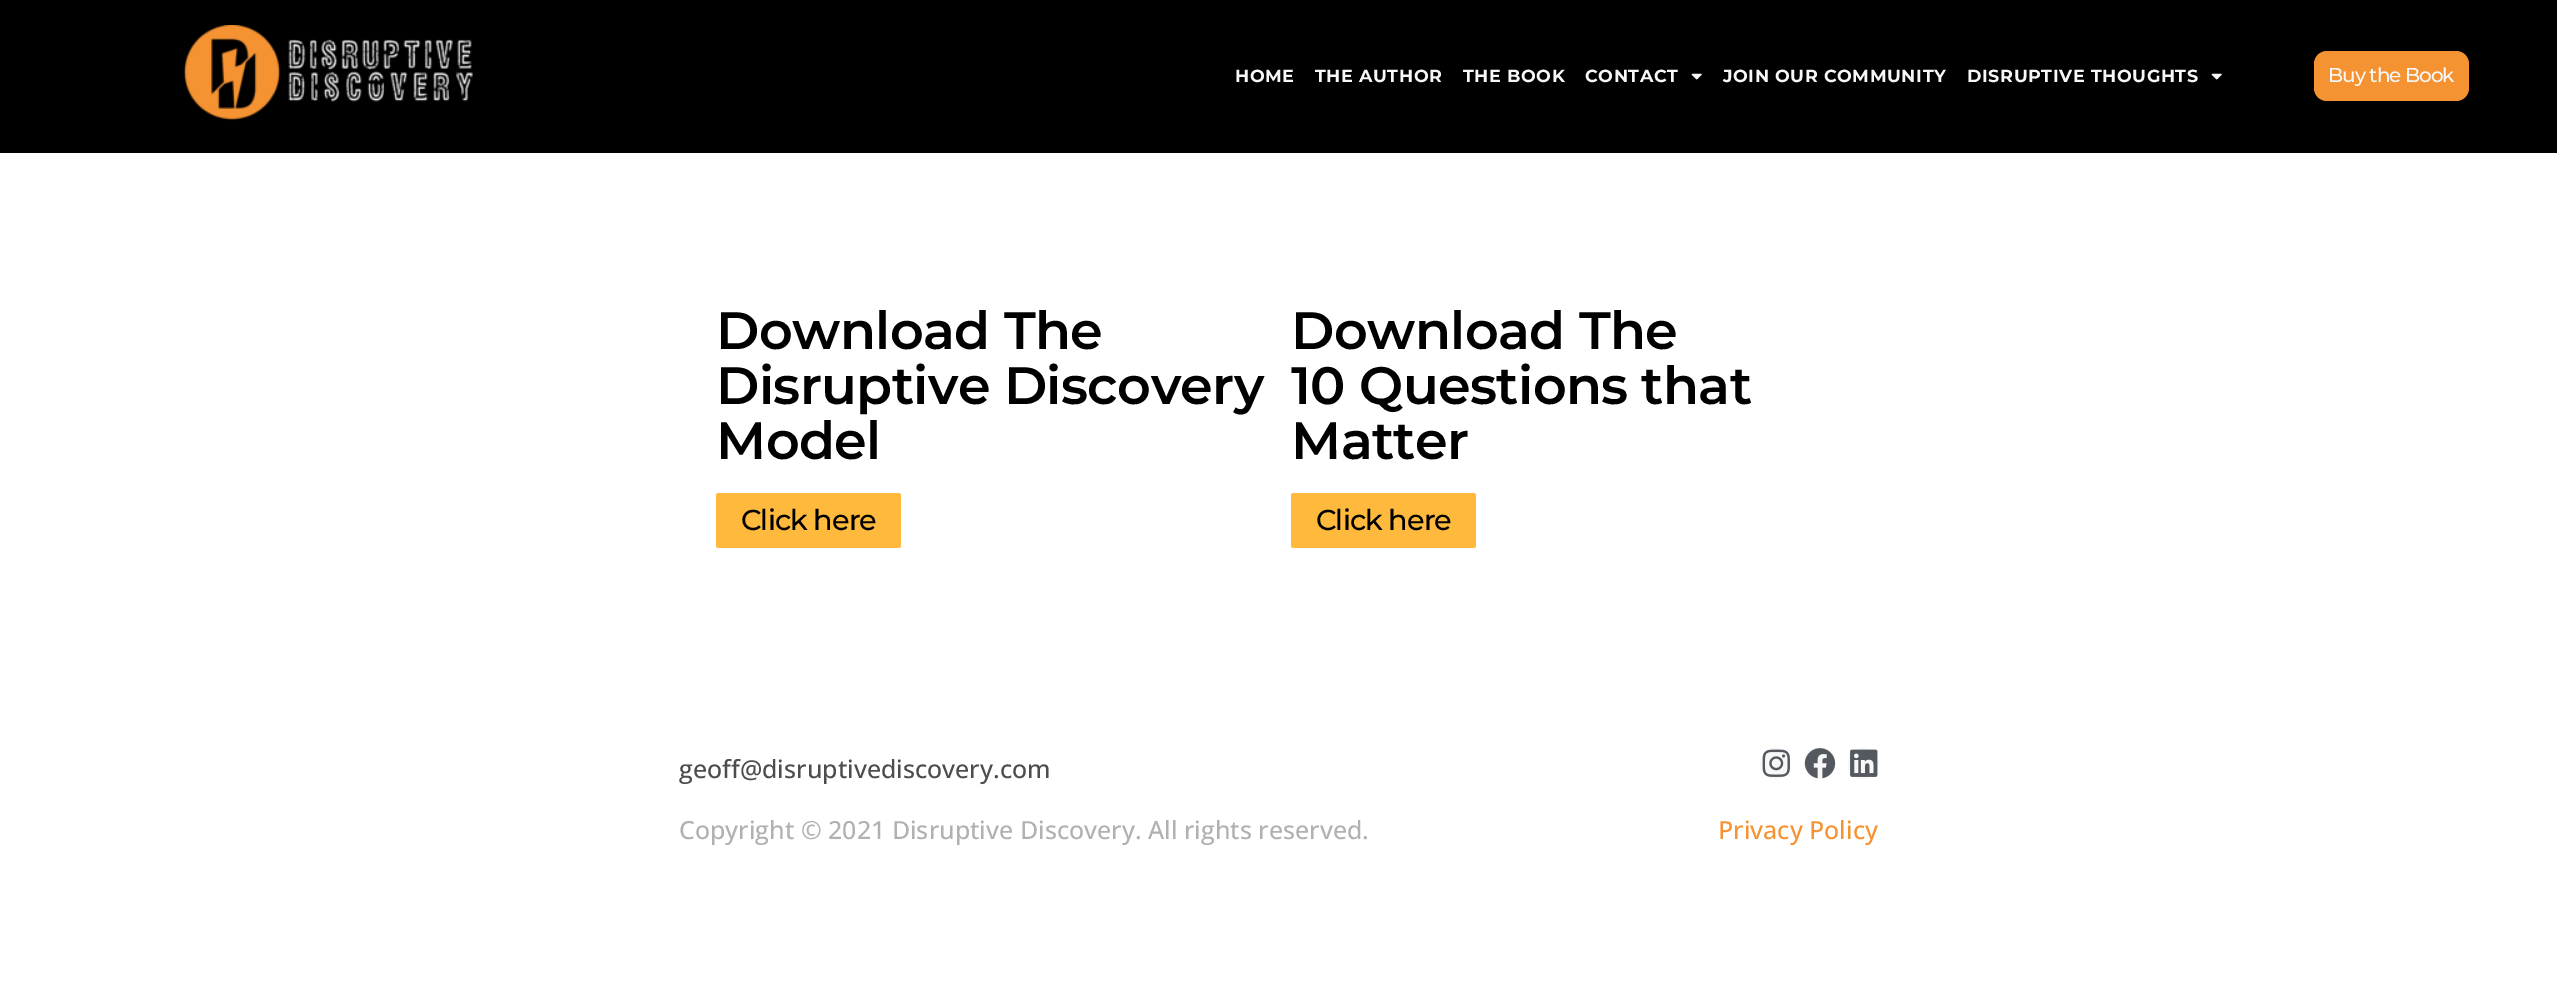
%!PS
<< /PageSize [2557 984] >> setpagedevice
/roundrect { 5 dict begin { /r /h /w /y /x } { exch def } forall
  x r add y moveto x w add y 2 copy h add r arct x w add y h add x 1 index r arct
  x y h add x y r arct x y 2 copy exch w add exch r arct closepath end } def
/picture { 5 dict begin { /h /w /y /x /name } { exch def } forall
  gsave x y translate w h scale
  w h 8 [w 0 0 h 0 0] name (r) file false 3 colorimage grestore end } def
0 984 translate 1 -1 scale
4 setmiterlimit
1 setgray
0 0 2557 984 rectfill
0 setgray
0 0 2557 153 rectfill
(img1.rgb) 183 25 290 96 picture
/Montserrat-Bold [17.5 0 0 -17.5 0 0] selectfont
0.969 setgray
1235 82 moveto 0.6 0 (HOME) ashow
1315 82 moveto 0.6 0 (THE AUTHOR) ashow
1463 82 moveto 0.6 0 (THE BOOK) ashow
1585 82 moveto 0.6 0 (CONTACT) ashow
(img2.rgb) 1691 73 11 7 picture
1723 82 moveto 0.6 0 (JOIN OUR COMMUNITY) ashow
1967 82 moveto 0.6 0 (DISRUPTIVE THOUGHTS) ashow
(img2.rgb) 2211 73 11 7 picture
0.961 0.576 0.2 setrgbcolor
2314 51 155 50 13 roundrect fill
/Montserrat-Medium [20 0 0 -20 0 0] selectfont
0.969 setgray
2328 82 moveto -1 0 (Buy the Book) ashow
/Montserrat-SemiBold [52.5 0 0 -52.5 0 0] selectfont
0 setgray
716 349 moveto -0.6 0 (Download The) ashow
716 404 moveto -0.6 0 (Disruptive Discovery) ashow
716 459 moveto -0.6 0 (Model) ashow
1 0.725 0.239 setrgbcolor
716 493 185 55 2.5 roundrect fill
/Montserrat-Medium [28.75 0 0 -28.75 0 0] selectfont
0 setgray
741 530 moveto -1 0 (Click here) ashow
/Montserrat-SemiBold [52.5 0 0 -52.5 0 0] selectfont
1291 349 moveto -0.6 0 (Download The) ashow
1291 404 moveto -0.6 0 (10 Questions that) ashow
1291 459 moveto -0.6 0 (Matter) ashow
1 0.725 0.239 setrgbcolor
1291 493 185 55 2.5 roundrect fill
/Montserrat-Medium [28.75 0 0 -28.75 0 0] selectfont
0 setgray
1316 530 moveto -1 0 (Click here) ashow
/OpenSans-Medium [25 0 0 -25 0 0] selectfont
0.302 setgray
679 778 moveto (geoff@disruptivediscovery.com) show
0.969 setgray
newpath 1775.5 763.5 15.5 0 360 arc closepath fill
(img3.rgb) 1762 749 28 28 picture
newpath 1819.5 763.5 15.5 0 360 arc closepath fill
(img4.rgb) 1804 748 32 31 picture
newpath 1863.5 763.5 15.5 0 360 arc closepath fill
(img5.rgb) 1850 749 28 28 picture
0.694 setgray
679 839 moveto (Copyright © 2021 Disruptive Discovery. All rights reserved.) show
0.961 0.576 0.2 setrgbcolor
1718 839 moveto (Privacy Policy) show
showpage
